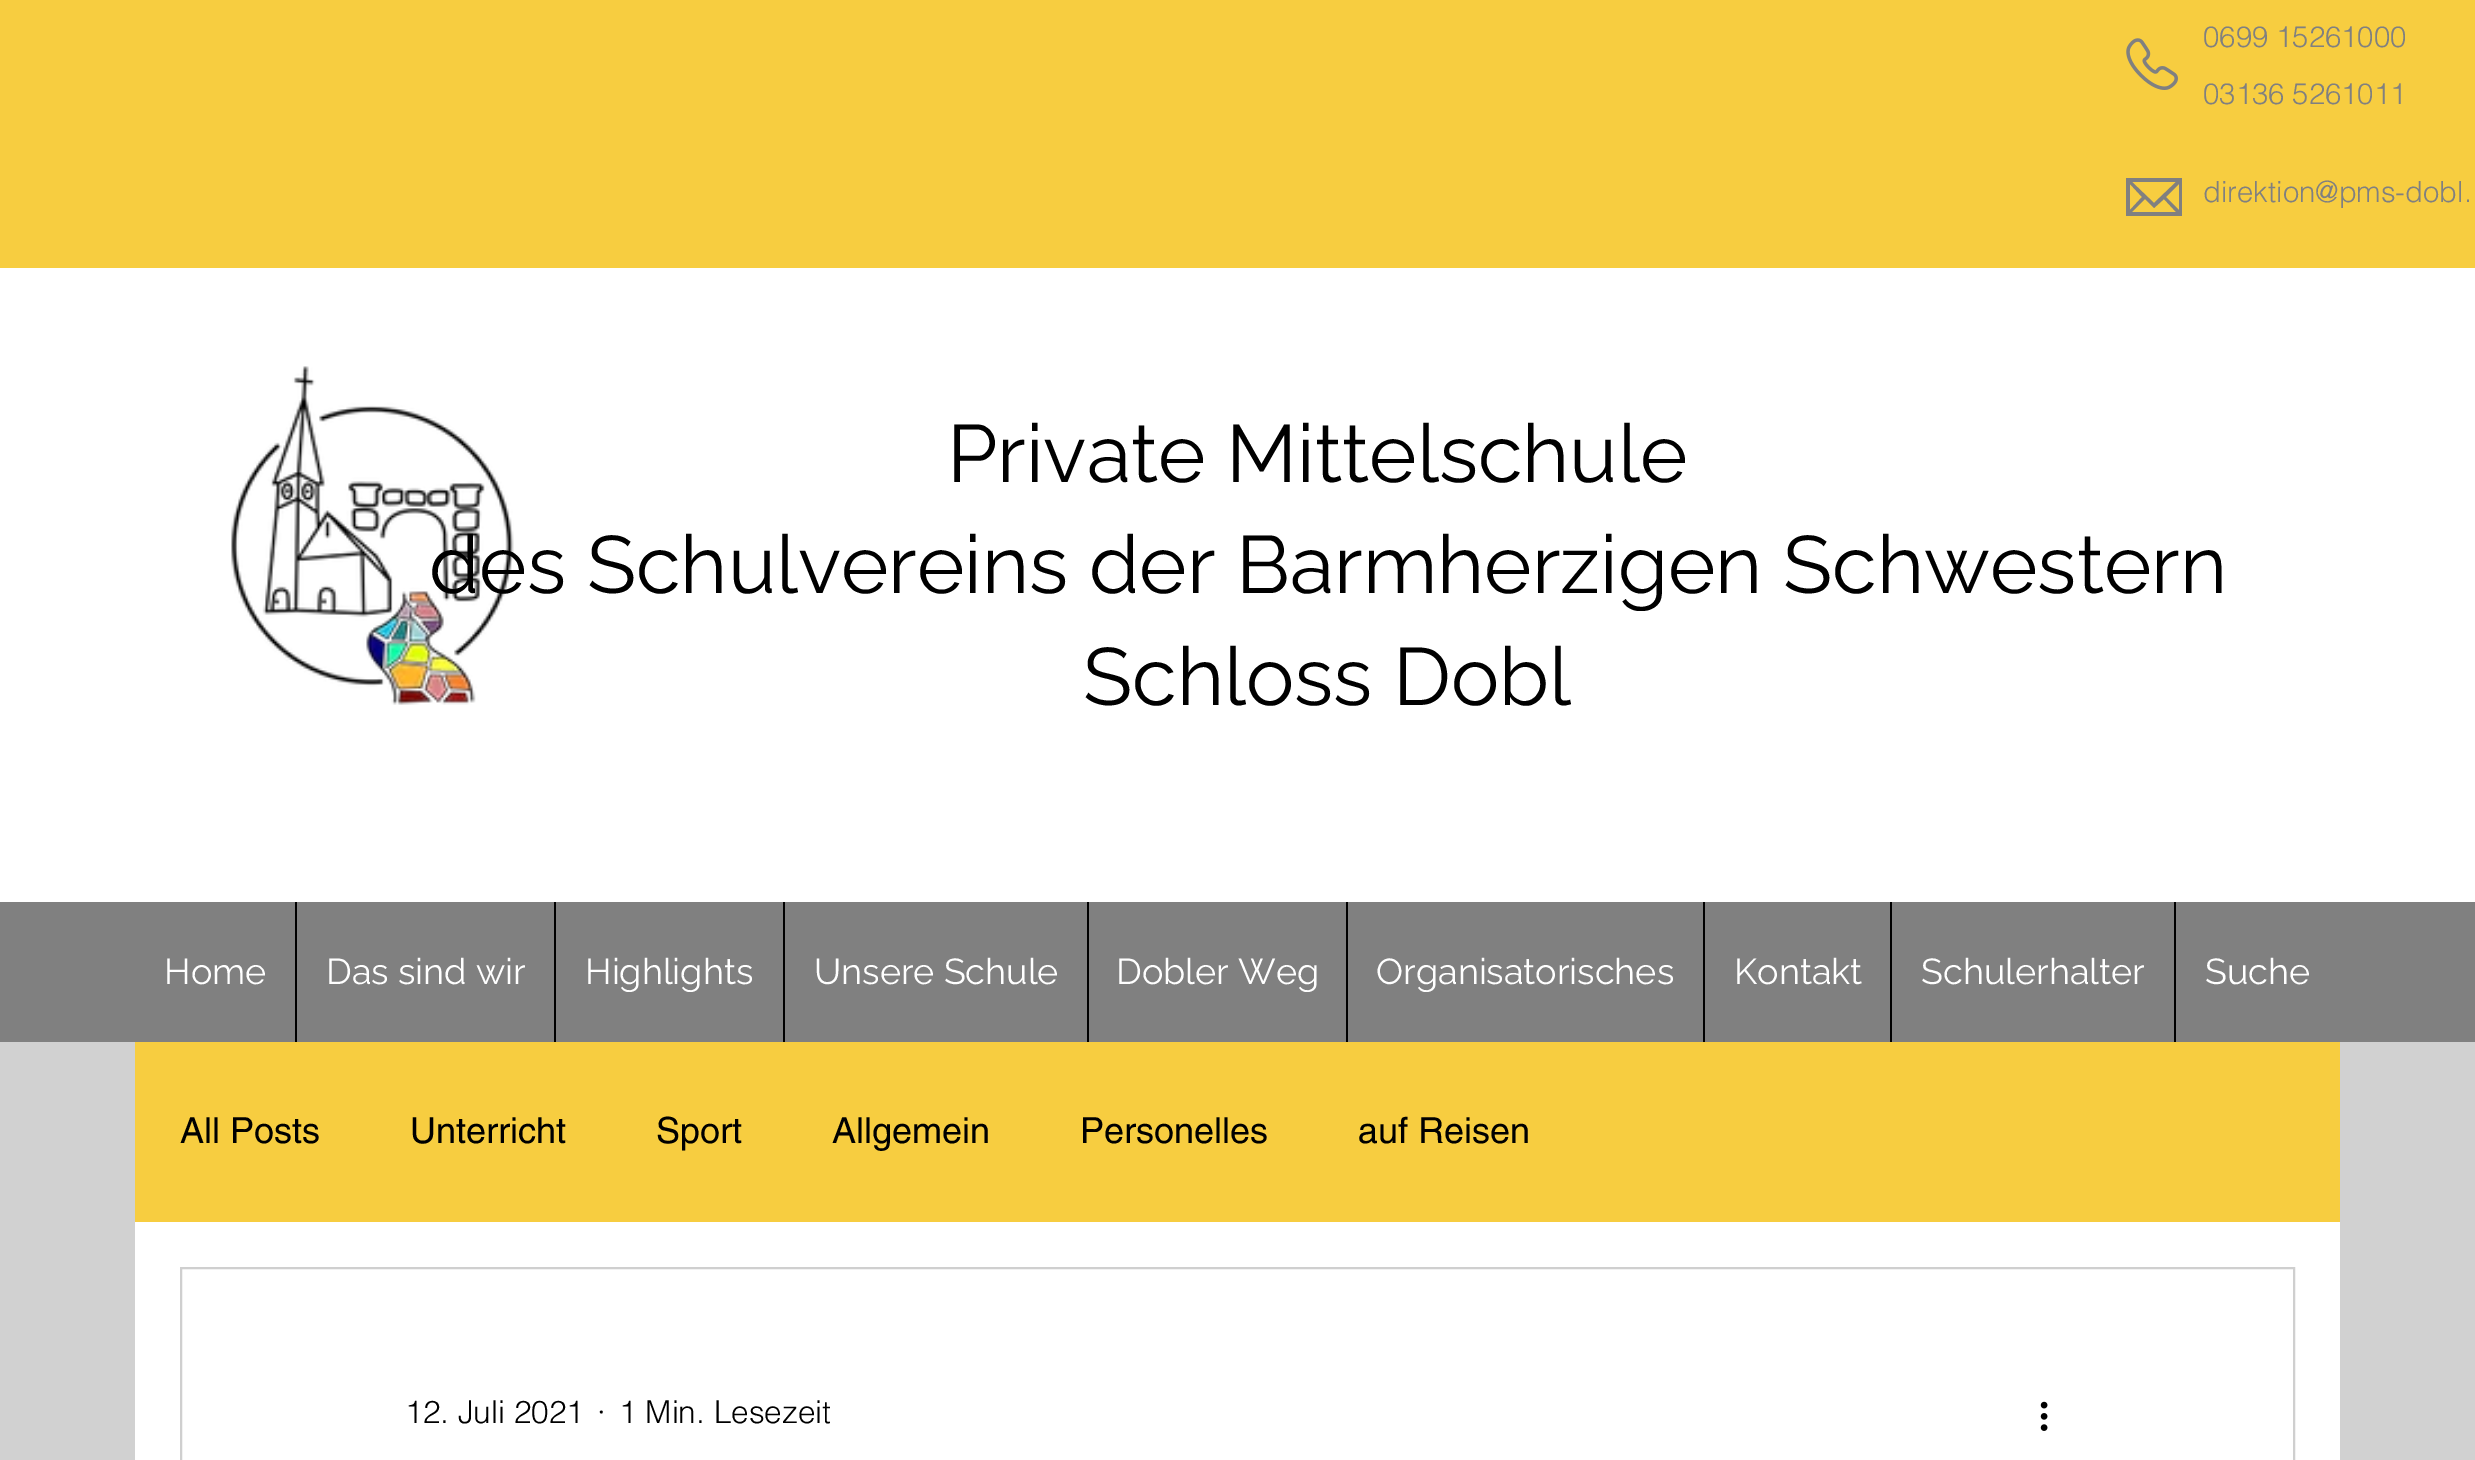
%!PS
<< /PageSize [2475 1460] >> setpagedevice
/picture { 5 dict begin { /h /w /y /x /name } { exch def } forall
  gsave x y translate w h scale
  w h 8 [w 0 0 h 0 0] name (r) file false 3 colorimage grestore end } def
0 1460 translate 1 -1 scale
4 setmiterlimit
0.82 setgray
0 0 2475 1460 rectfill
0.969 0.804 0.251 setrgbcolor
0 0 2475 268 rectfill
(img1.rgb) 2126 38 52 52 picture
/helvetica-Light [29.25 0 0 -29.25 0 0] selectfont
0.502 setgray
2203 47 moveto (0699 15261000) show
2203 104 moveto (03136 5261011) show
newpath 2126 178 moveto 2126 216 lineto 2182 216 lineto 2182 178 lineto closepath 2154 203 moveto 2132 182 lineto 2176 182 lineto closepath 2142 197 moveto 2130 210 lineto 2130 184 lineto closepath 2145 199 moveto 2154 208 lineto 2164 199 lineto 2176 212 lineto 2132 212 lineto closepath 2166 197 moveto 2179 184 lineto 2179 210 lineto closepath fill
2203 202 moveto (direktion@pms-dobl.) show
1 setgray
0 268 2475 634 rectfill
(img2.rgb) 231 366 283 339 picture
/Raleway-Regular [81 0 0 -81 0 0] selectfont
0 setgray
947 482 moveto (Private Mittelschule) show
429 593 moveto (des Schulvereins der Barmherzigen Schwestern) show
1083 705 moveto (Schloss Dobl) show
0.502 setgray
0 902 2475 140 rectfill
/Raleway-Regular [36 0 0 -36 0 0] selectfont
1 setgray
164 984 moveto (Home) show
0 setgray
295 902 2 140 rectfill
1 setgray
326 984 moveto (Das sind wir) show
0 setgray
554 902 2 140 rectfill
1 setgray
585 984 moveto (Highlights) show
0 setgray
783 902 2 140 rectfill
1 setgray
814 984 moveto (Unsere Schule) show
0 setgray
1087 902 2 140 rectfill
1 setgray
1116 984 moveto (Dobler Weg) show
0 setgray
1346 902 2 140 rectfill
1 setgray
1376 984 moveto (Organisatorisches) show
0 setgray
1703 902 2 140 rectfill
1 setgray
1734 984 moveto (Kontakt) show
0 setgray
1890 902 2 140 rectfill
1 setgray
1921 984 moveto (Schulerhalter) show
0 setgray
2174 902 2 140 rectfill
1 setgray
2205 984 moveto (Suche) show
135 1222 2205 238 rectfill
0.969 0.804 0.251 setrgbcolor
135 1042 2205 180 rectfill
/helvetica-Regular [36 0 0 -36 0 0] selectfont
0 setgray
180 1143 moveto (All Posts) show
410 1143 moveto (Unterricht) show
656 1143 moveto (Sport) show
832 1143 moveto (Allgemein) show
1080 1143 moveto (Personelles) show
1358 1143 moveto (auf Reisen) show
0.812 setgray
2 setlinewidth
181 1268 2113 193 rectstroke
/helvetica-Light [31.5 0 0 -31.5 0 0] selectfont
0 setgray
405 1423 moveto (12. Juli 2021) show
597 1423 moveto (·) show
gsave
583 1391 247 47 rectclip
619 1423 moveto (1 Min. Lesezeit) show
grestore
(img3.rgb) 2040 1401 8 30 picture
showpage
